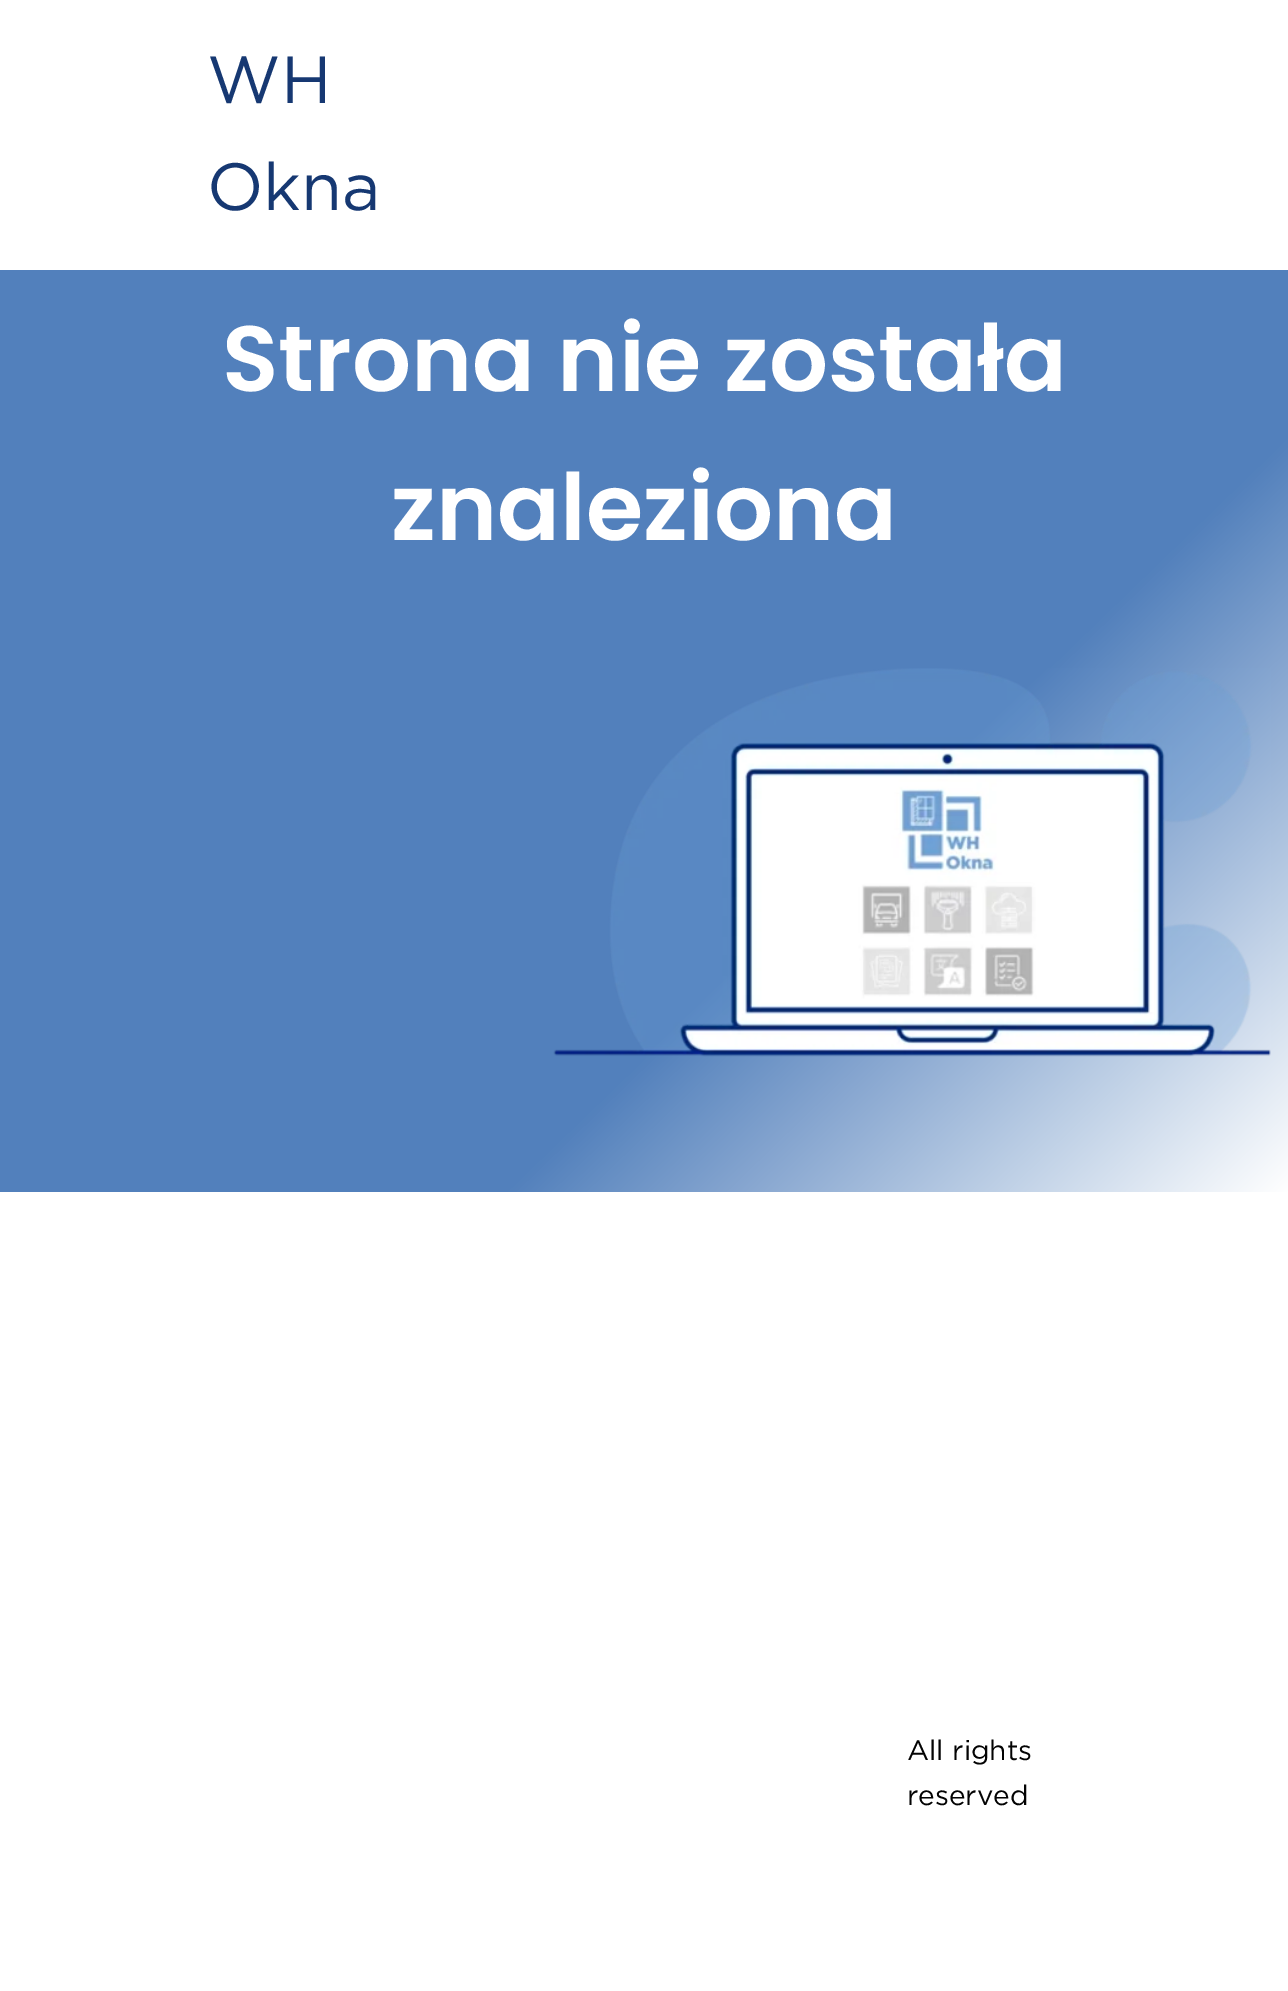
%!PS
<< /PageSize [1288 1991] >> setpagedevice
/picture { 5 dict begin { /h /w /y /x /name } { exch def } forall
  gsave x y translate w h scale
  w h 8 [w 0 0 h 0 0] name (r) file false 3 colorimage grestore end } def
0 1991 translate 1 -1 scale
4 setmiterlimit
1 setgray
0 0 1288 1991 rectfill
/Gotham-Regular [66.5 0 0 -66.5 0 0] selectfont
0.086 0.22 0.447 setrgbcolor
207 103 moveto (WH) show
207 210 moveto (Okna) show
gsave newpath 0 270 moveto 1288 270 lineto 1288 1192 lineto 0 1192 lineto closepath clip newpath
<< /ShadingType 2 /ColorSpace /DeviceRGB /Coords [1185 1291 103 170] /Extend [true true] /Function << /FunctionType 3 /Domain [0 1] /Functions [<< /FunctionType 2 /Domain [0 1] /C0 [1 1 1] /C1 [0.322 0.502 0.737] /N 1 >> << /FunctionType 2 /Domain [0 1] /C0 [0.322 0.502 0.737] /C1 [0.322 0.502 0.737] /N 1 >>] /Bounds [0.35] /Encode [0 1 0 1] >> >> shfill grestore
/Poppins-SemiBold [92.75 0 0 -92.75 0 0] selectfont
1 setgray
222 391 moveto (Strona nie została) show
391 540 moveto (znaleziona) show
(img1.rgb) 553 668 718 389 picture
/Gotham-Regular [28 0 0 -28 0 0] selectfont
0.012 setgray
907 1760 moveto (All rights) show
907 1805 moveto (reserved) show
showpage
